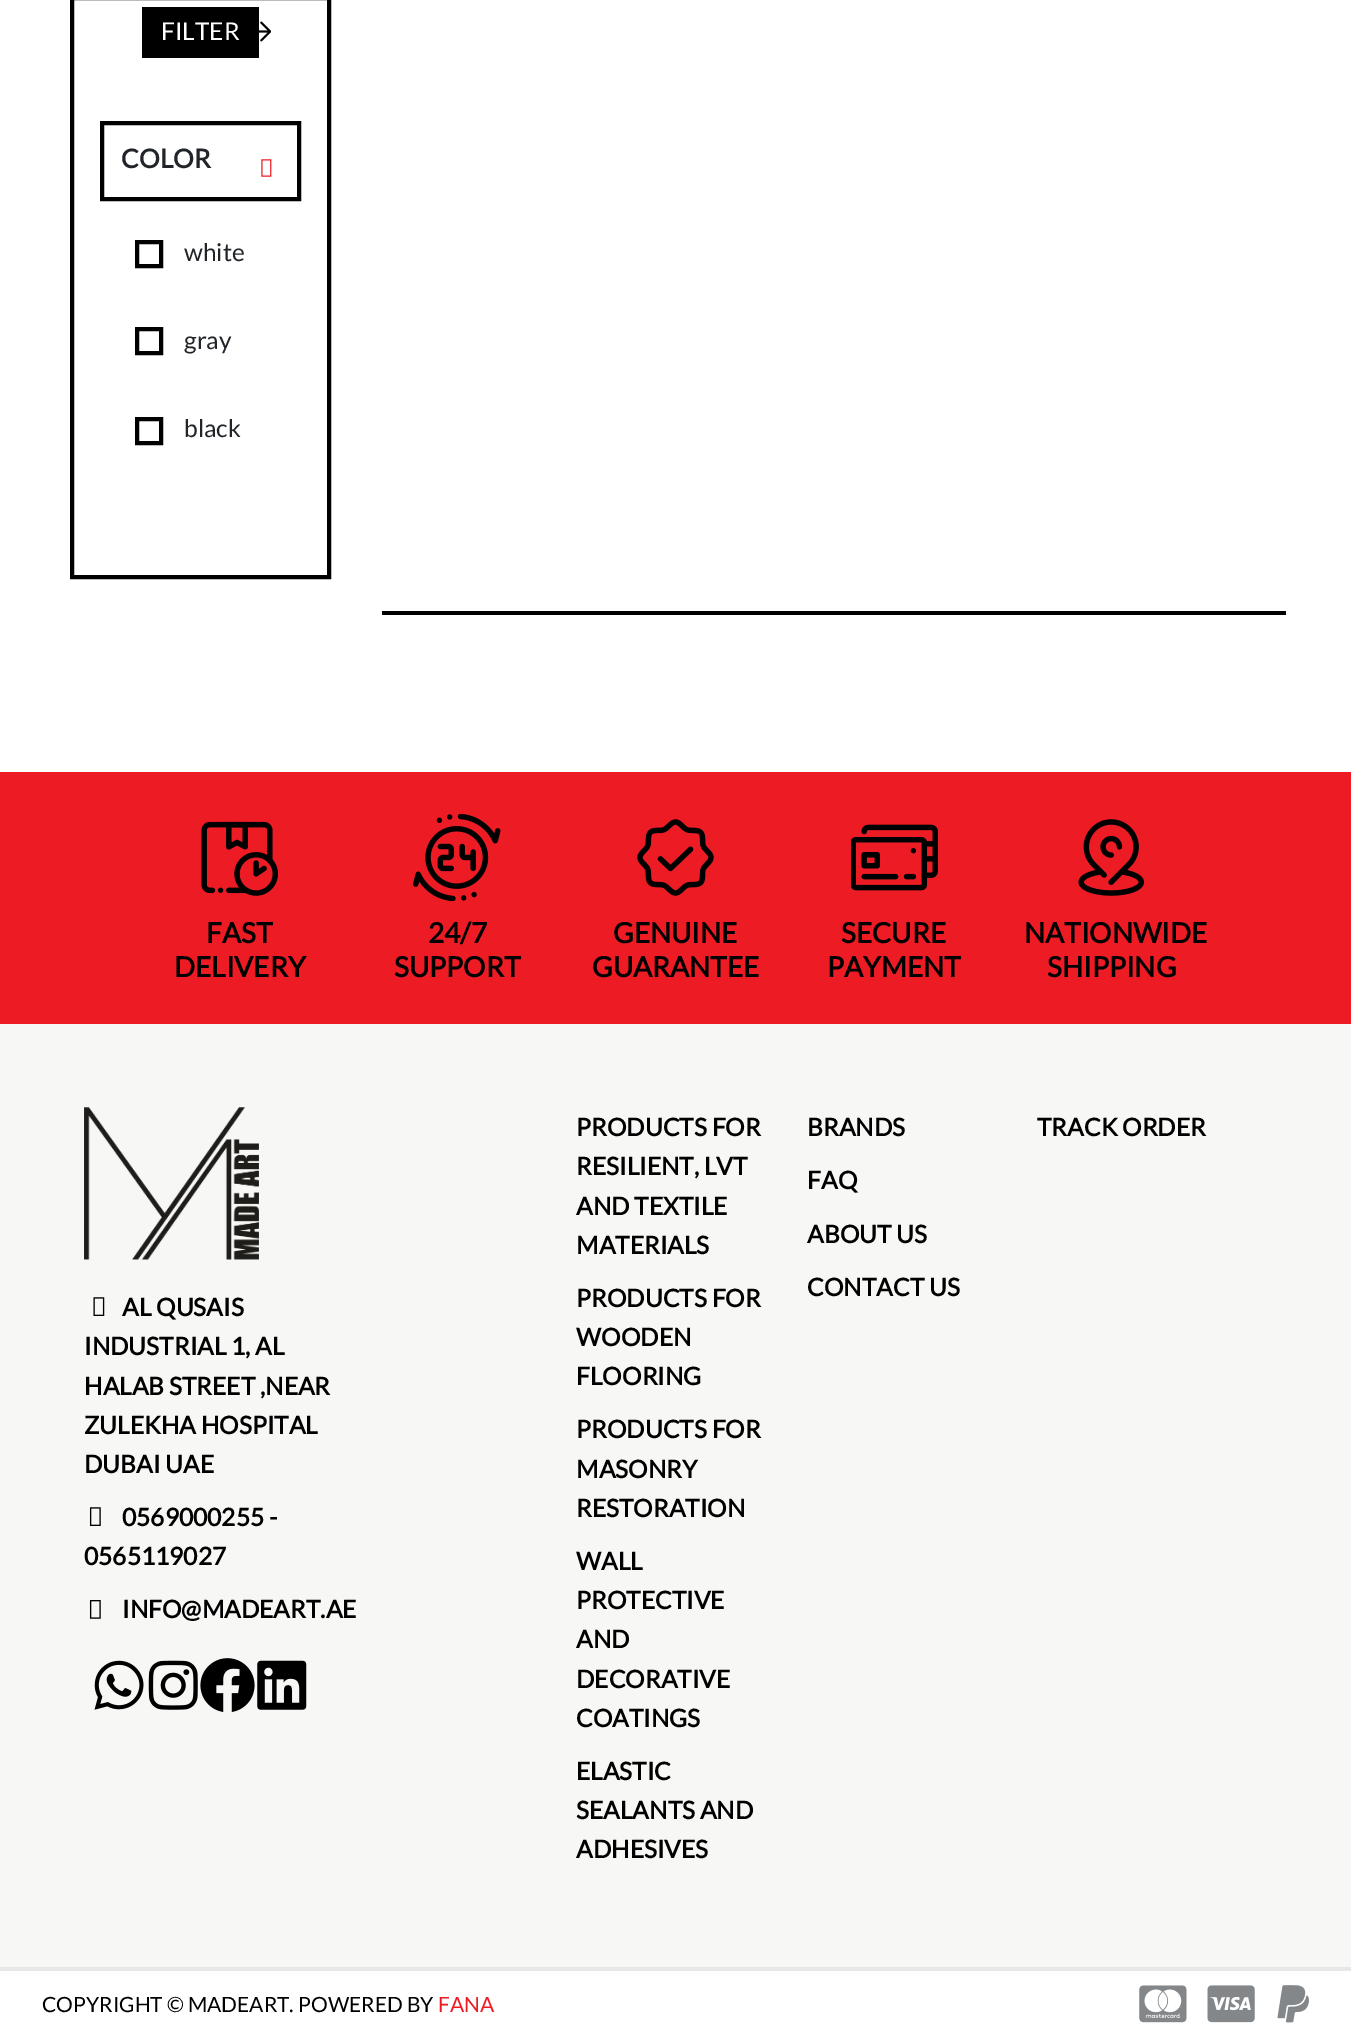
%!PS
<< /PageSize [1351 2038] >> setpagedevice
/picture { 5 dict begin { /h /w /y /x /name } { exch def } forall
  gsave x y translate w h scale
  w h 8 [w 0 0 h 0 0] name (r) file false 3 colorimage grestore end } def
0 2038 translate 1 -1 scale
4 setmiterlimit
1 setgray
0 0 1351 2038 rectfill
0 setgray
4 setlinewidth
72 -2 257 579 rectstroke
142 7 117 51 rectfill
/Lato-Regular [24.5 0 0 -24.5 0 0] selectfont
1 setgray
161 40 moveto (FILTER) show
(img1.rgb) 259 21 12 21 picture
0 setgray
102 123 197 76 rectstroke
/Lato-Bold [26 0 0 -26 0 0] selectfont
0.129 0.145 0.161 setrgbcolor
121 168 moveto (COLOR) show
(img2.rgb) 261 159 11 18 picture
0 setgray
137 242 24 24 rectstroke
/Lato-Regular [24.5 0 0 -24.5 0 0] selectfont
0.129 0.145 0.161 setrgbcolor
184 261 moveto (white) show
0 setgray
137 329 24 24 rectstroke
0.129 0.145 0.161 setrgbcolor
184 349 moveto (gray) show
0 setgray
137 419 24 24 rectstroke
0.129 0.145 0.161 setrgbcolor
184 437 moveto (black) show
0 setgray
382 611 904 4 rectfill
0.929 0.11 0.141 setrgbcolor
0 772 1351 252 rectfill
(img3.rgb) 201 821 77 75 picture
/Lato-Bold [28 0 0 -28 0 0] selectfont
0 setgray
206 943 moveto (FAST) show
174 977 moveto (DELIVERY) show
(img4.rgb) 413 814 88 87 picture
428 943 moveto (24/7) show
394 977 moveto (SUPPORT) show
(img5.rgb) 637 819 77 77 picture
613 943 moveto (GENUINE) show
592 977 moveto (GUARANTEE) show
(img6.rgb) 851 824 87 67 picture
841 943 moveto (SECURE) show
827 977 moveto (PAYMENT) show
(img7.rgb) 1078 819 67 77 picture
1024 943 moveto (NATIONWIDE) show
1047 977 moveto (SHIPPING) show
0.969 0.969 0.961 setrgbcolor
0 1024 1351 943 rectfill
(img8.rgb) 84 1107 175 153 picture
(img9.rgb) 93 1297 12 19 picture
/Lato-Bold [24.5 0 0 -24.5 0 0] selectfont
0 setgray
122 1316 moveto (AL QUSAIS) show
84 1355 moveto (INDUSTRIAL 1, AL) show
84 1395 moveto (HALAB STREET ,NEAR) show
84 1434 moveto (ZULEKHA HOSPITAL) show
84 1473 moveto (DUBAI UAE) show
(img10.rgb) 89 1507 12 19 picture
122 1526 moveto (0569000255 -) show
84 1565 moveto (0565119027) show
(img11.rgb) 89 1600 12 19 picture
122 1618 moveto (INFO@MADEART.AE) show
(img12.rgb) 94 1660 50 50 picture
(img13.rgb) 148 1660 50 50 picture
(img14.rgb) 200 1658 55 54 picture
(img15.rgb) 257 1660 50 50 picture
576 1136 moveto (PRODUCTS FOR) show
576 1175 moveto (RESILIENT, LVT) show
576 1215 moveto (AND TEXTILE) show
576 1254 moveto (MATERIALS) show
576 1307 moveto (PRODUCTS FOR) show
576 1346 moveto (WOODEN) show
576 1385 moveto (FLOORING) show
576 1438 moveto (PRODUCTS FOR) show
576 1478 moveto (MASONRY) show
576 1517 moveto (RESTORATION) show
576 1570 moveto (WALL) show
576 1609 moveto (PROTECTIVE) show
576 1648 moveto (AND) show
576 1688 moveto (DECORATIVE) show
576 1727 moveto (COATINGS) show
576 1780 moveto (ELASTIC) show
576 1819 moveto (SEALANTS AND) show
576 1858 moveto (ADHESIVES) show
807 1136 moveto (BRANDS) show
807 1189 moveto (FAQ) show
807 1243 moveto (ABOUT US) show
807 1296 moveto (CONTACT US) show
1037 1136 moveto (TRACK ORDER) show
0.902 0.906 0.902 setrgbcolor
0 1967 1351 4 rectfill
/Lato-Regular [21 0 0 -21 0 0] selectfont
0 setgray
42 2012 moveto (COPYRIGHT © MADEART. POWERED BY) show
0.929 0.11 0.141 setrgbcolor
438 2012 moveto (FANA) show
(img16.rgb) 1139 1985 48 38 picture
(img17.rgb) 1207 1985 48 38 picture
(img18.rgb) 1277 1985 32 38 picture
showpage
